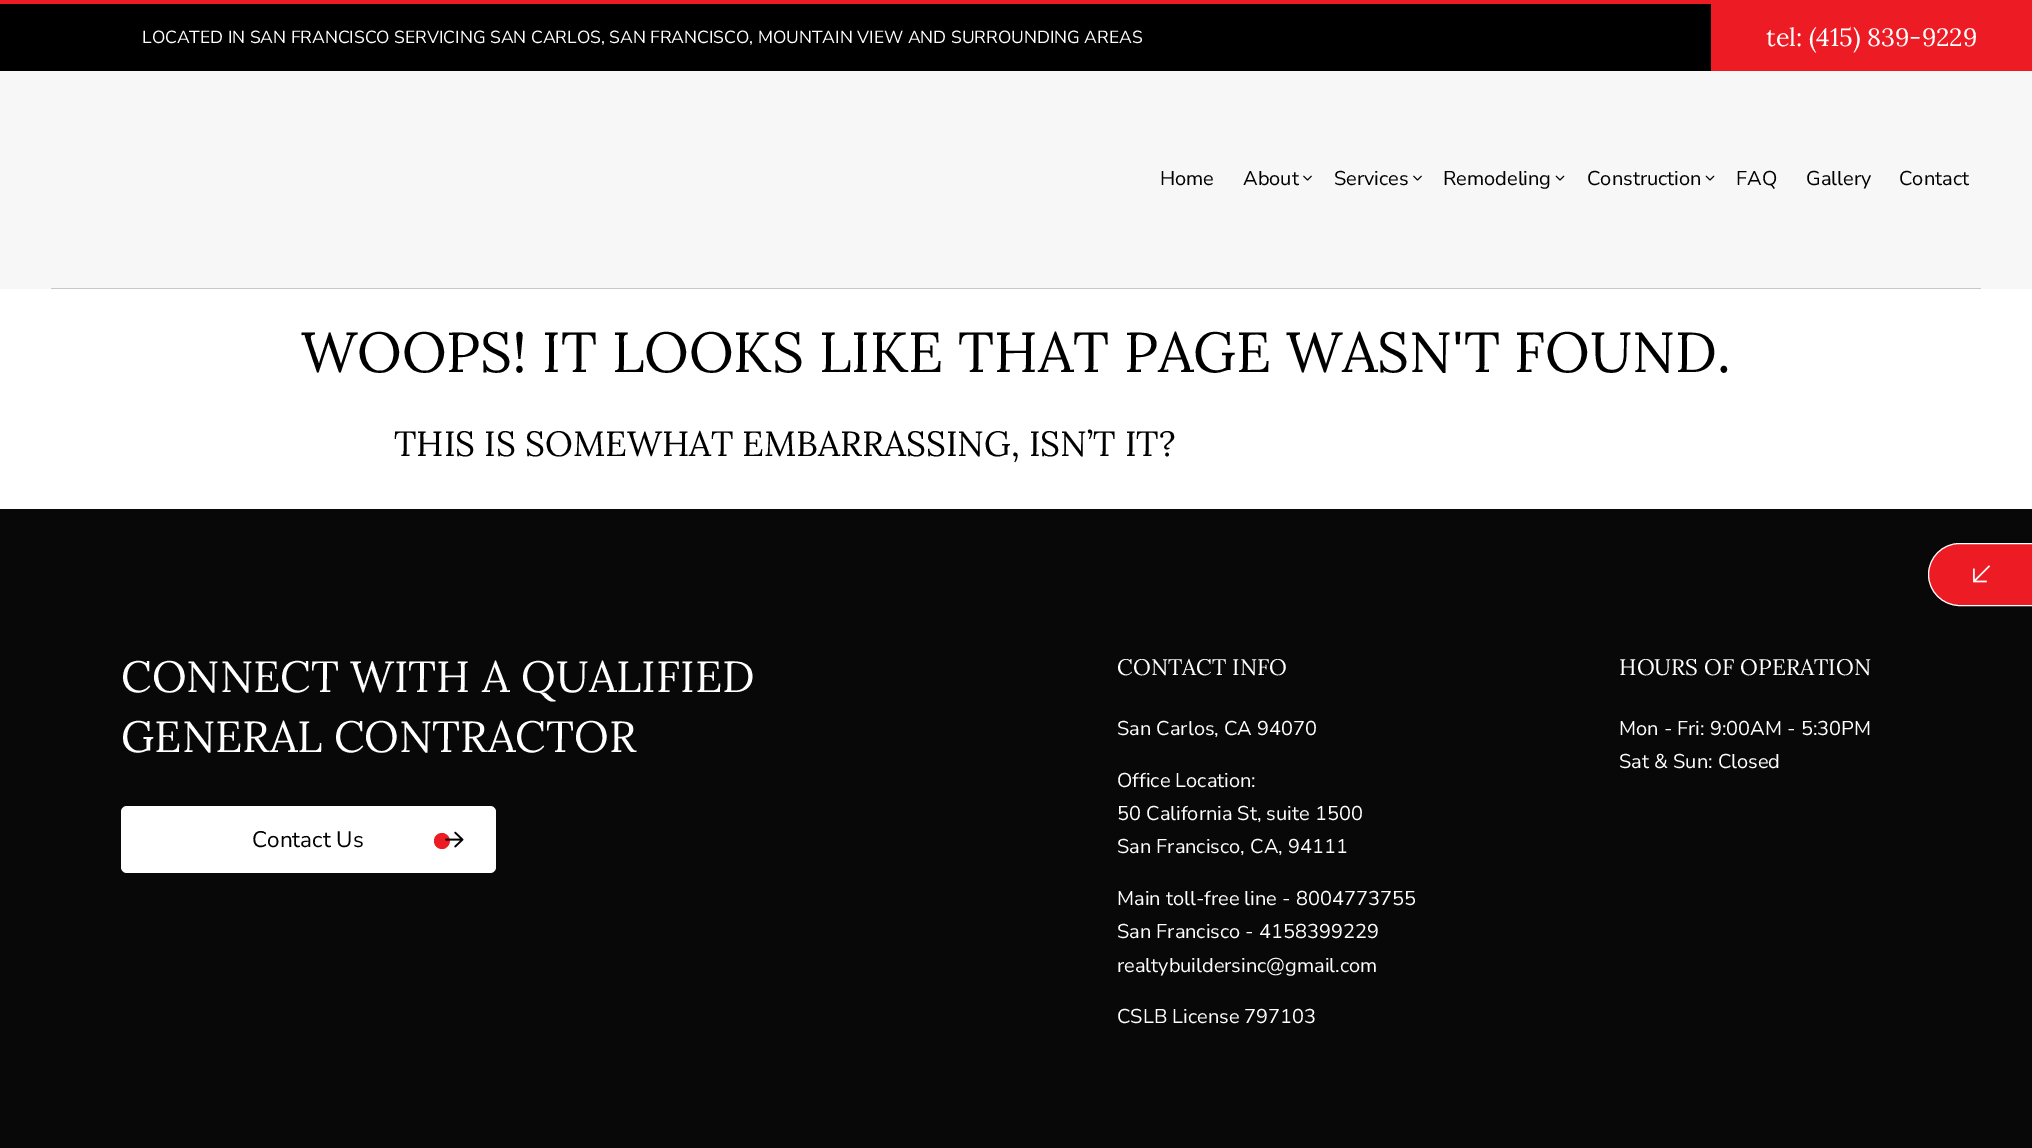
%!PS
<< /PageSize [2032 1148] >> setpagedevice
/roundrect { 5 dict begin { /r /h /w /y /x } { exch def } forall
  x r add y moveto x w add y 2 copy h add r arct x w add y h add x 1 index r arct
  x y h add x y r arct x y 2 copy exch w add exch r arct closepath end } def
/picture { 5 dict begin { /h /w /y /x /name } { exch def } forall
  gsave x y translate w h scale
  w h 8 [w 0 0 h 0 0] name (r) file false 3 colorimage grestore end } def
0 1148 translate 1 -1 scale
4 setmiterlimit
1 setgray
0 0 2032 1148 rectfill
0.969 setgray
0 71 2032 218 rectfill
0 setgray
0 4 1711 67 rectfill
0.929 0.11 0.141 setrgbcolor
0 0 2032 4 rectfill
/NunitoSans-Regular [17.5 0 0 -17.5 0 0] selectfont
1 setgray
142 43 moveto (LOCATED IN SAN FRANCISCO SERVICING SAN CARLOS, SAN FRANCISCO, MOUNTAIN VIEW AND SURROUNDING AREAS) show
0.929 0.11 0.141 setrgbcolor
1711 4 321 67 rectfill
/Lora-Regular [25 0 0 -25 0 0] selectfont
1 setgray
1766 46 moveto (tel: \(415\) 839-9229) show
0.788 0.776 0.776 setrgbcolor
51 288 1930 1 rectfill
/NunitoSans-Regular [20 0 0 -20 0 0] selectfont
0 setgray
1160 185 moveto (Home) show
1243 185 moveto (About) show
(img1.rgb) 1303 175 9 6 picture
1334 185 moveto (Services) show
(img1.rgb) 1413 175 9 6 picture
1443 185 moveto (Remodeling) show
(img2.rgb) 1555 175 10 6 picture
1587 185 moveto (Construction) show
(img2.rgb) 1705 175 10 6 picture
1736 185 moveto (FAQ) show
1806 185 moveto (Gallery) show
1899 185 moveto (Contact) show
/Lora-Regular [56.25 0 0 -56.25 0 0] selectfont
301 372 moveto (WOOPS! IT LOOKS LIKE THAT PAGE WASN'T FOUND.) show
/Lora-Regular [35 0 0 -35 0 0] selectfont
394 456 moveto (THIS IS SOMEWHAT EMBARRASSING, ISN’T IT?) show
0.031 setgray
0 509 2032 639 rectfill
0.929 0.11 0.141 setrgbcolor
newpath 1959.5 543.5 moveto 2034.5 543.5 lineto 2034.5 605.5 lineto 1959.5 605.5 lineto 1942.5 605.5 1928.5 591.5 1928.5 574.5 curveto 1928.5 557.5 1942.5 543.5 1959.5 543.5 curveto closepath gsave fill grestore
1 setgray
stroke
(img3.rgb) 1973 565 18 18 picture
/Lora-Regular [43.75 0 0 -43.75 0 0] selectfont
121 692 moveto (CONNECT WITH A QUALIFIED) show
121 752 moveto (GENERAL CONTRACTOR) show
121 806 375 67 6 roundrect fill
/NunitoSans-Regular [22.5 0 0 -22.5 0 0] selectfont
0 setgray
252 847 moveto (Contact Us) show
0.929 0.11 0.141 setrgbcolor
newpath 442 841 8 0 360 arc closepath fill
(img4.rgb) 445 831 19 17 picture
/Lora-Regular [22.5 0 0 -22.5 0 0] selectfont
1 setgray
1117 675 moveto (CONTACT INFO) show
/NunitoSans-Regular [20 0 0 -20 0 0] selectfont
1117 735 moveto (San Carlos, CA 94070) show
1117 787 moveto (Office Location:) show
1117 820 moveto (50 California St, suite 1500) show
1117 853 moveto (San Francisco, CA, 94111) show
1117 905 moveto (Main toll-free line - 8004773755) show
1117 938 moveto (San Francisco - 4158399229) show
1117 972 moveto (realtybuildersinc@gmail.com) show
1117 1023 moveto (CSLB License 797103) show
/Lora-Regular [22.5 0 0 -22.5 0 0] selectfont
1619 675 moveto (HOURS OF OPERATION) show
/NunitoSans-Regular [20 0 0 -20 0 0] selectfont
1619 735 moveto (Mon - Fri: 9:00AM - 5:30PM) show
1619 768 moveto (Sat & Sun: Closed) show
showpage
